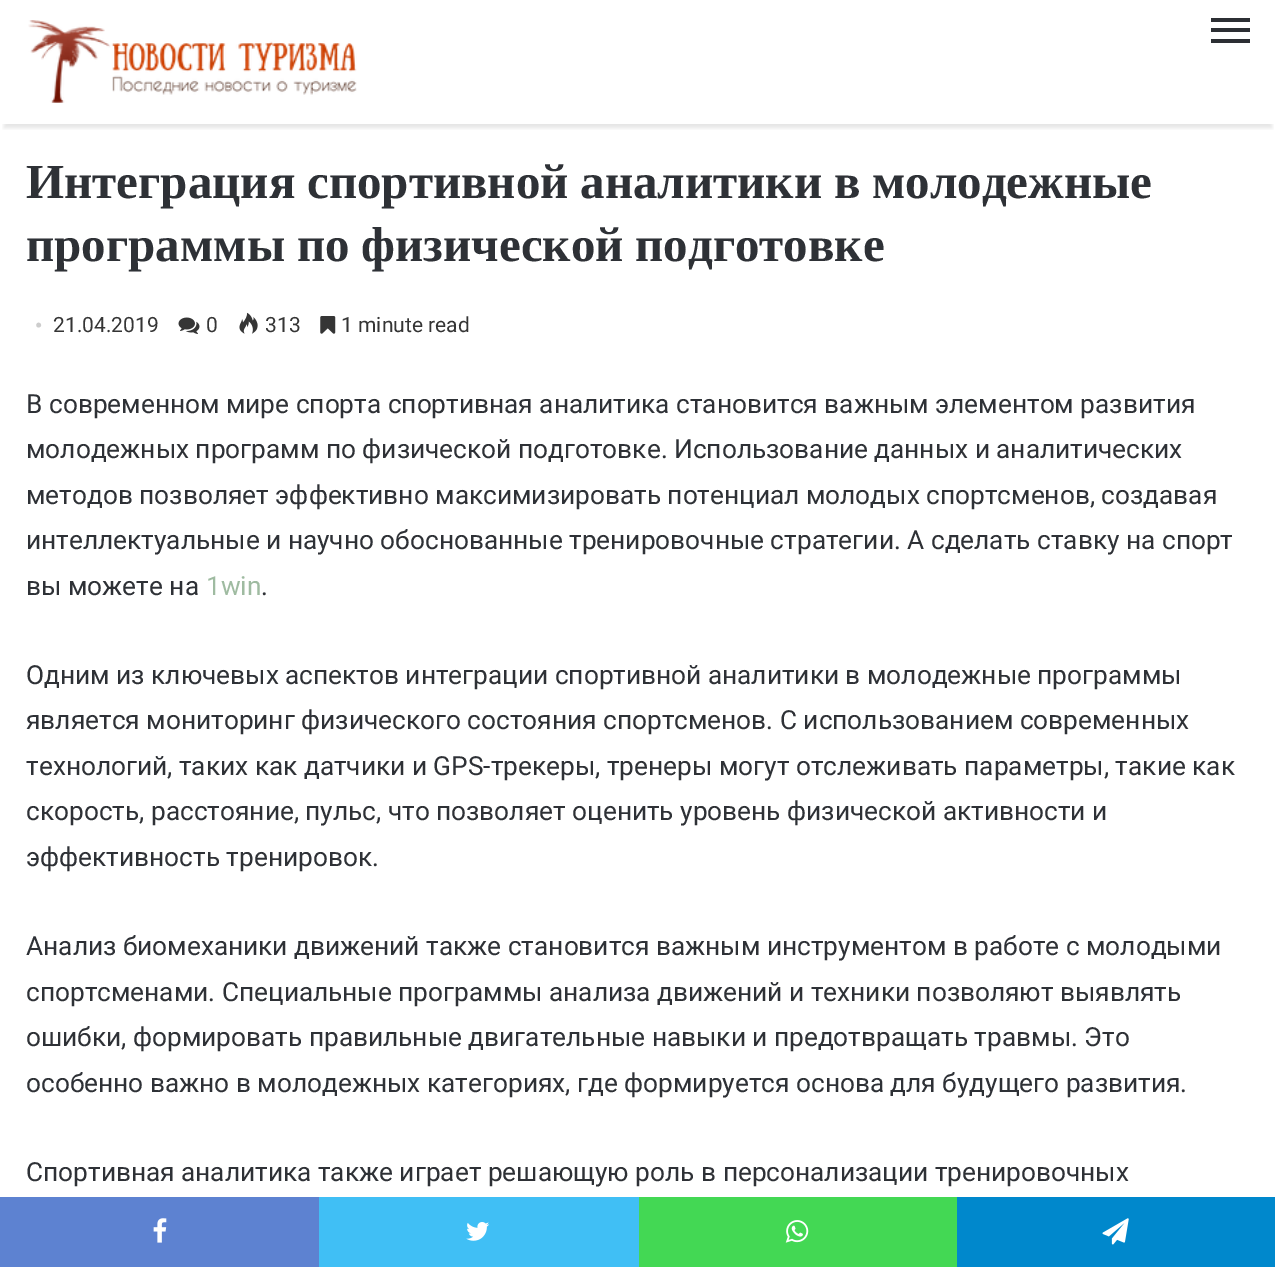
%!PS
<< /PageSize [1275 1267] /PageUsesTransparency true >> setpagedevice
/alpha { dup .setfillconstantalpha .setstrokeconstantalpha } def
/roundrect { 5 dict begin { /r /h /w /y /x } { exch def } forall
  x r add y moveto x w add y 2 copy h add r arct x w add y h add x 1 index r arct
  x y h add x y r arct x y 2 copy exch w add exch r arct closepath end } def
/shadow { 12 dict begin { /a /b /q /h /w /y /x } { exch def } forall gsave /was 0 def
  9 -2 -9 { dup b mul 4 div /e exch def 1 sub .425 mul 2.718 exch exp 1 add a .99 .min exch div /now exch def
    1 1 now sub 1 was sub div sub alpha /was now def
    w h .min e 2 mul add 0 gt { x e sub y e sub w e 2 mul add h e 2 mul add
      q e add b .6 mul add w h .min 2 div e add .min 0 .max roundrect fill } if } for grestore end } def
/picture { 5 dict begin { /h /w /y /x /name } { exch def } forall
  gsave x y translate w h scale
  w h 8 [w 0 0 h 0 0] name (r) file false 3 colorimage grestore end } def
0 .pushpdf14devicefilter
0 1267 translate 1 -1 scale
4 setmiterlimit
1 setgray
0 0 1275 1267 rectfill
gsave
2 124 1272 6 rectclip
0 setgray
4 11 1268 117 0 2 0.1 shadow
grestore
(img1.rgb) 28 20 329 83 picture
0.173 0.184 0.204 setrgbcolor
1211 28 39 4 rectfill
1211 18 39 4 rectfill
1211 39 39 4 rectfill
/LiberationSerif-Bold [49 0 0 -49 0 0] selectfont
0.18 0.192 0.212 setrgbcolor
26 198 moveto -0.5 0 32 (Интеграция спортивной аналитики в молодежные) widthshow
26 261 moveto -0.5 0 32 (программы по физической подготовке) widthshow
/LiberationSerif-Regular [21 0 0 -21 0 0] selectfont
0.804 setgray
35 332 moveto (•) show
/Roboto-Regular [21 0 0 -21 0 0] selectfont
0.208 setgray
53 332 moveto (21.04.2019) show
(img2.rgb) 178 317 22 17 picture
206 332 moveto (0) show
(img3.rgb) 239 312 19 22 picture
265 332 moveto (313) show
(img4.rgb) 320 316 16 18 picture
341 332 moveto (1 minute read) show
/Roboto-Regular [26.25 0 0 -26.25 0 0] selectfont
0.18 0.192 0.212 setrgbcolor
26 413 moveto (В современном мире спорта спортивная аналитика становится важным элементом развития) show
26 458 moveto (молодежных программ по физической подготовке. Использование данных и аналитических) show
26 504 moveto (методов позволяет эффективно максимизировать потенциал молодых спортсменов, создавая) show
26 549 moveto (интеллектуальные и научно обоснованные тренировочные стратегии. А сделать ставку на спорт) show
26 595 moveto (вы можете на) show
0.624 0.733 0.631 setrgbcolor
206 595 moveto (1win) show
0.18 0.192 0.212 setrgbcolor
261 595 moveto (.) show
26 684 moveto (Одним из ключевых аспектов интеграции спортивной аналитики в молодежные программы) show
26 729 moveto (является мониторинг физического состояния спортсменов. С использованием современных) show
26 775 moveto (технологий, таких как датчики и GPS-трекеры, тренеры могут отслеживать параметры, такие как) show
26 820 moveto (скорость, расстояние, пульс, что позволяет оценить уровень физической активности и) show
26 866 moveto (эффективность тренировок.) show
26 955 moveto (Анализ биомеханики движений также становится важным инструментом в работе с молодыми) show
26 1001 moveto (спортсменами. Специальные программы анализа движений и техники позволяют выявлять) show
26 1046 moveto (ошибки, формировать правильные двигательные навыки и предотвращать травмы. Это) show
26 1092 moveto (особенно важно в молодежных категориях, где формируется основа для будущего развития.) show
26 1181 moveto (Спортивная аналитика также играет решающую роль в персонализации тренировочных) show
0.365 0.51 0.82 setrgbcolor
0 1197 319 70 rectfill
(img5.rgb) 153 1218 14 25 picture
0.251 0.749 0.961 setrgbcolor
319 1197 320 70 rectfill
(img6.rgb) 466 1222 24 19 picture
0.263 0.847 0.329 setrgbcolor
639 1197 318 70 rectfill
(img7.rgb) 785 1220 24 23 picture
0 0.533 0.8 setrgbcolor
957 1197 318 70 rectfill
(img8.rgb) 1102 1218 27 27 picture
.poppdf14devicefilter showpage
